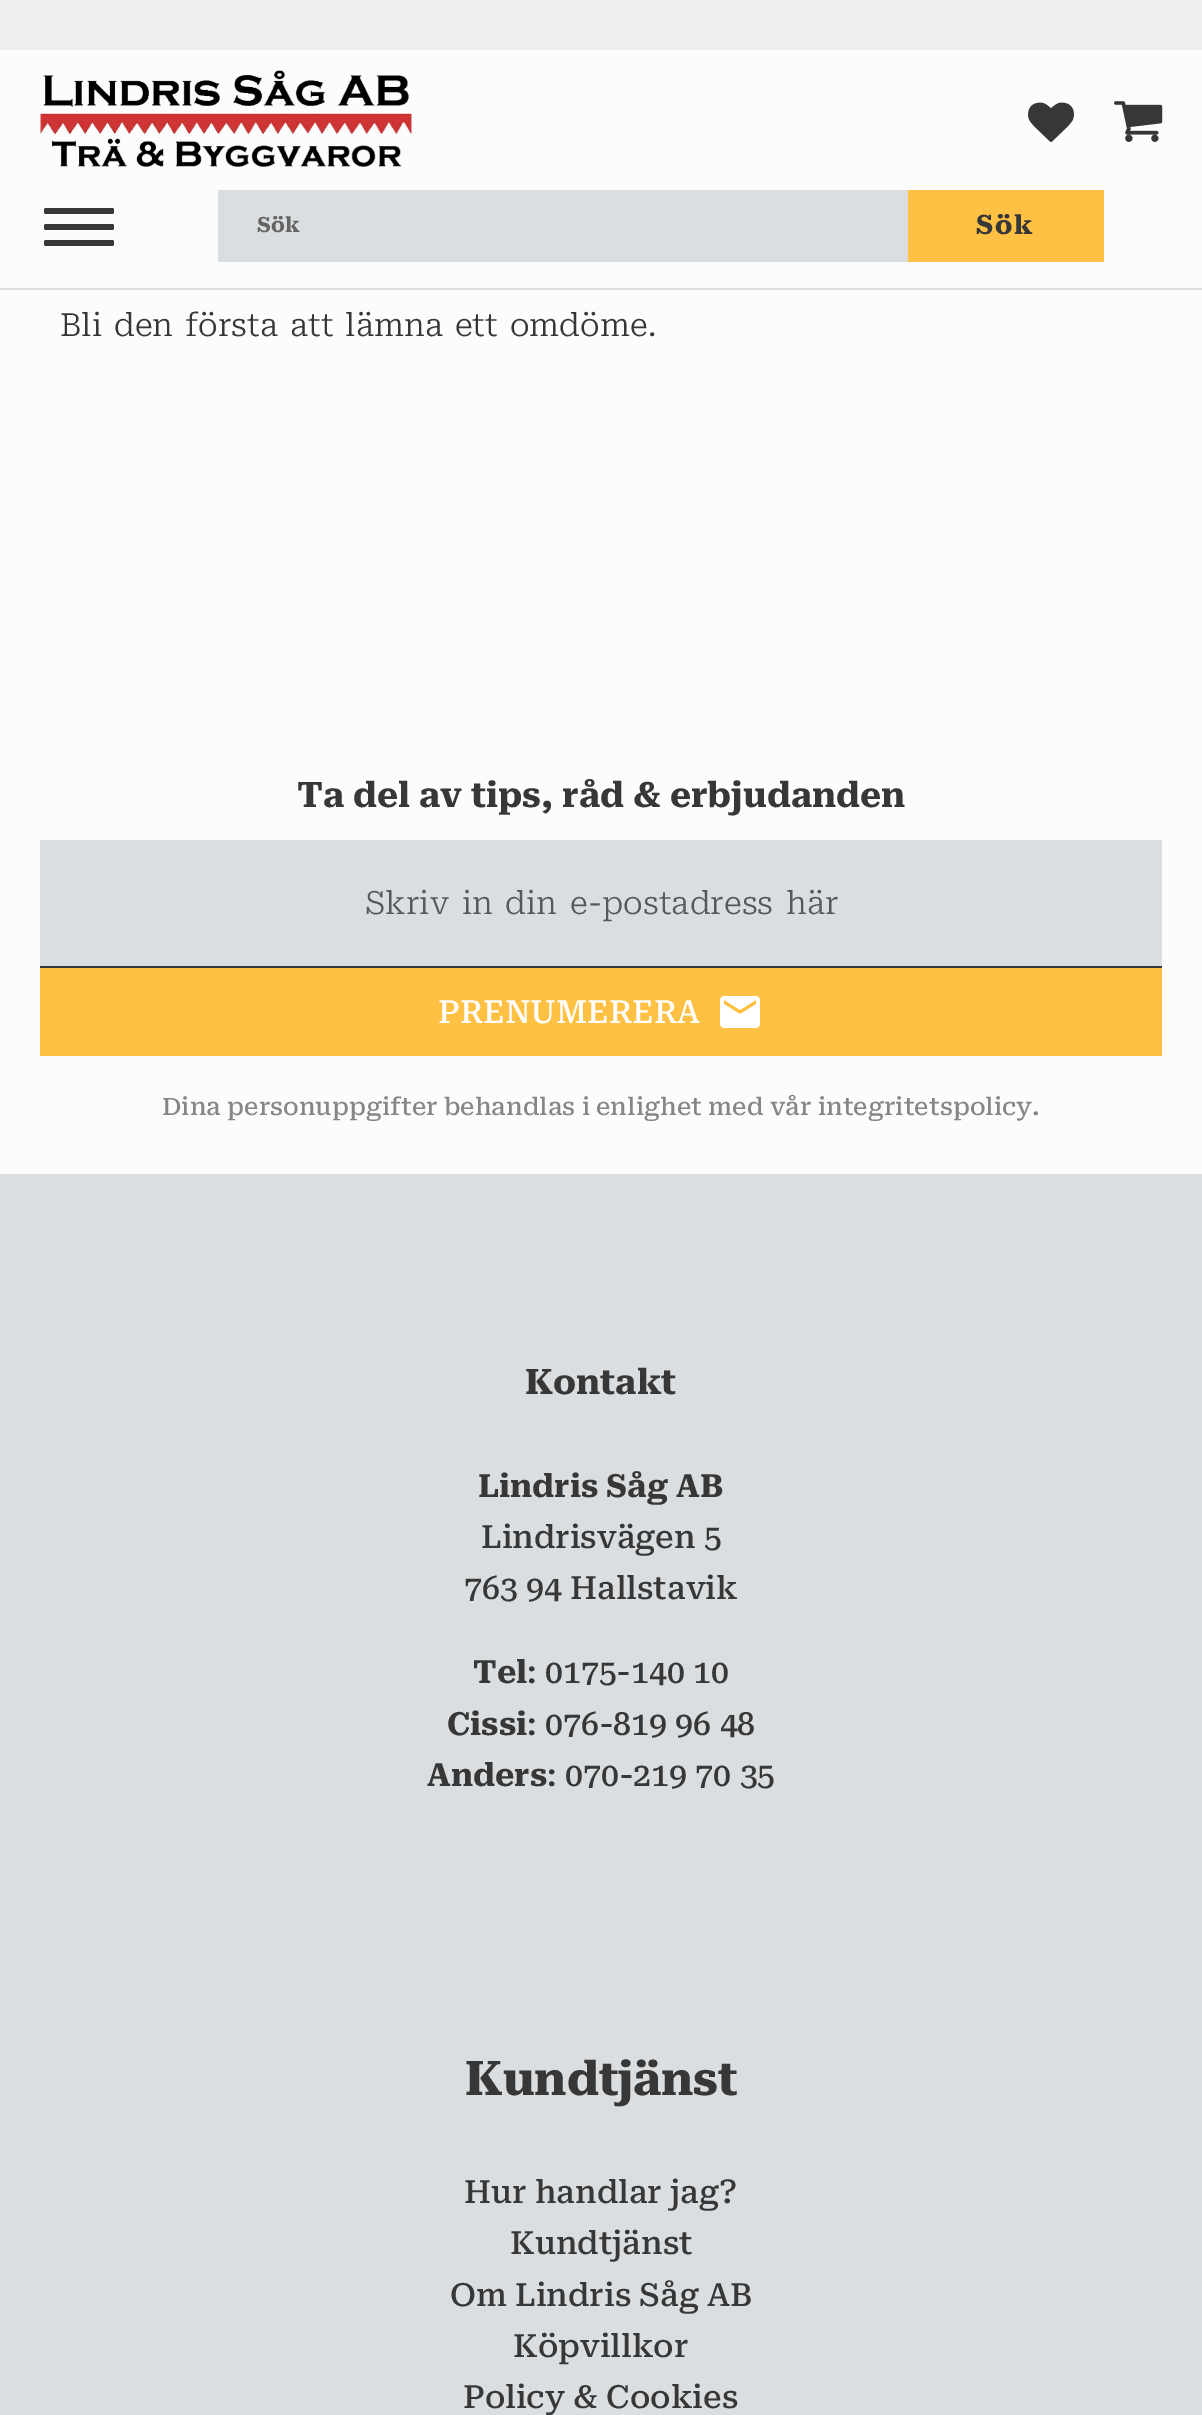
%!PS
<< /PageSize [1202 2415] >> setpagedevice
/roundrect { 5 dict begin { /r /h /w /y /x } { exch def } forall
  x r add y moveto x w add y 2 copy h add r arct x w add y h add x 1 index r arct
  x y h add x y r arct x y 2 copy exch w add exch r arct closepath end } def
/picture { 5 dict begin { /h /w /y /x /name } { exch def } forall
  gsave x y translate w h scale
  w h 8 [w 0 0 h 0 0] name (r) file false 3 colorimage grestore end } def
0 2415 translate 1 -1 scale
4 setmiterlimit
0.988 setgray
0 0 1202 2415 rectfill
0.859 0.871 0.878 setrgbcolor
0 288 1202 2 rectfill
0.216 setgray
44 224 70 6 2 roundrect fill
44 208 70 6 2 roundrect fill
44 240 70 6 2 roundrect fill
0.933 setgray
0 0 1202 50 rectfill
(img1.rgb) 40 70 372 97 picture
(img2.rgb) 1028 102 46 40 picture
(img3.rgb) 1114 101 49 41 picture
0.859 0.871 0.878 setrgbcolor
218 190 690 72 rectfill
/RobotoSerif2-Bold [21 0 0 -21 0 0] selectfont
0.392 setgray
257 232 moveto (Sök) show
1 0.757 0.263 setrgbcolor
908 190 196 72 rectfill
/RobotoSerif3-Bold [27 0 0 -27 0 0] selectfont
0.216 setgray
976 234 moveto 2 0 (Sök) ashow
/RobotoSerif-Light [32 0 0 -32 0 0] selectfont
60 336 moveto 3.75 0 32 (Bli den första att lämna ett omdöme.) widthshow
0.859 0.871 0.878 setrgbcolor
0 1174 1202 1241 rectfill
/RobotoSerif-Bold [35.25 0 0 -35.25 0 0] selectfont
0.216 setgray
297 807 moveto (Ta del av tips, råd & erbjudanden) show
0.859 0.871 0.878 setrgbcolor
40 840 1122 126 rectfill
0.216 setgray
40 966 1122 2 rectfill
/RobotoSerif-Light [32 0 0 -32 0 0] selectfont
0.345 0.345 0.349 setrgbcolor
365 914 moveto 4.5 0 32 (Skriv in din e-postadress här) widthshow
1 0.757 0.263 setrgbcolor
40 968 1122 88 rectfill
/RobotoSerif2-Medium [32 0 0 -32 0 0] selectfont
1 setgray
438 1023 moveto (PRENUMERERA) show
(img4.rgb) 720 996 40 32 picture
/RobotoSerif-Medium [24 0 0 -24 0 0] selectfont
0.525 setgray
162 1115 moveto (Dina personuppgifter behandlas i enlighet med vår integritetspolicy.) show
/RobotoSerif-Bold [35.25 0 0 -35.25 0 0] selectfont
0.216 setgray
525 1394 moveto (Kontakt) show
/RobotoSerif2-Bold [32 0 0 -32 0 0] selectfont
478 1497 moveto (Lindris Såg AB) show
/RobotoSerif2-Medium [32 0 0 -32 0 0] selectfont
481 1548 moveto (Lindrisvägen 5) show
464 1599 moveto (763 94 Hallstavik) show
/RobotoSerif2-Bold [32 0 0 -32 0 0] selectfont
473 1683 moveto (Tel) show
/RobotoSerif2-Medium [32 0 0 -32 0 0] selectfont
527 1683 moveto (: 0175-140 10) show
/RobotoSerif2-Bold [32 0 0 -32 0 0] selectfont
447 1735 moveto (Cissi) show
/RobotoSerif2-Medium [32 0 0 -32 0 0] selectfont
527 1735 moveto (: 076-819 96 48) show
/RobotoSerif2-Bold [32 0 0 -32 0 0] selectfont
427 1786 moveto (Anders) show
/RobotoSerif2-Medium [32 0 0 -32 0 0] selectfont
547 1786 moveto (: 070-219 70 35) show
/RobotoSerif3-Bold [48 0 0 -48 0 0] selectfont
465 2095 moveto (Kundtjänst) show
/RobotoSerif2-Medium [32 0 0 -32 0 0] selectfont
464 2203 moveto (Hur handlar jag?) show
510 2254 moveto (Kundtjänst) show
450 2306 moveto (Om Lindris Såg AB) show
513 2357 moveto (Köpvillkor) show
463 2408 moveto (Policy & Cookies) show
showpage
